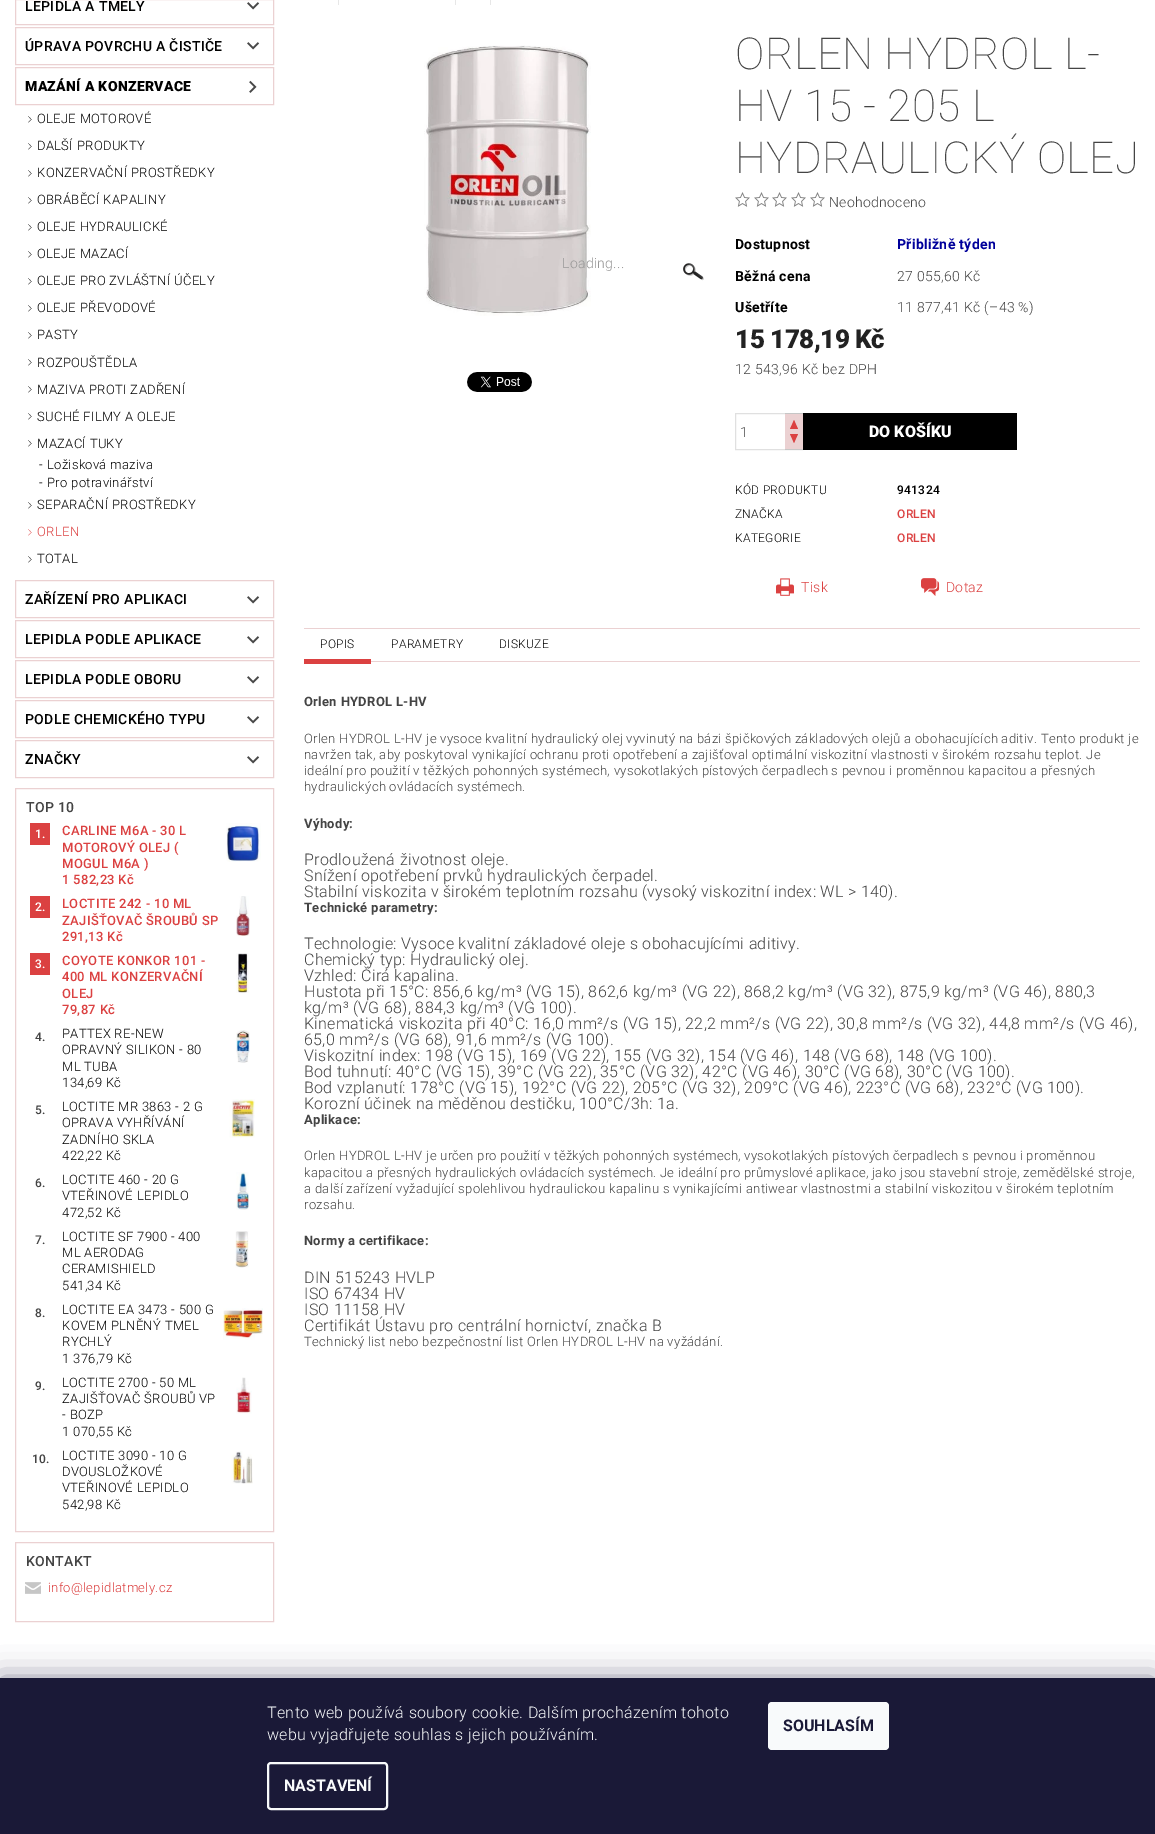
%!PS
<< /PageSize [1155 1834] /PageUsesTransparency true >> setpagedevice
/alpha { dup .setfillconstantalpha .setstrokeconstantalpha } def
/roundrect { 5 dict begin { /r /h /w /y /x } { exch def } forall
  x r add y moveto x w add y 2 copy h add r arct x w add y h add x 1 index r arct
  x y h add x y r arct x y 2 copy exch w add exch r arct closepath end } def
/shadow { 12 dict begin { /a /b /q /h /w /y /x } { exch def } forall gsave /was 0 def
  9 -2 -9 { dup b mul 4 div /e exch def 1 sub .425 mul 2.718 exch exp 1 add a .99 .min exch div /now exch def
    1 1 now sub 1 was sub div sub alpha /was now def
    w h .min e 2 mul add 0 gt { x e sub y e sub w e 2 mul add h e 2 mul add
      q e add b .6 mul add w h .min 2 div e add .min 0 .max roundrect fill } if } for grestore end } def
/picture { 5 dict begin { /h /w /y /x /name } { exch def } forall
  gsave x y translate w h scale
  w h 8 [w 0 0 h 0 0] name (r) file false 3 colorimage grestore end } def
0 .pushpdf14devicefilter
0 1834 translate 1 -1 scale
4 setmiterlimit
1 setgray
0 0 1155 1834 rectfill
0.922 0.82 0.824 setrgbcolor
15.5 -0.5 258 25 rectstroke
/Roboto-Medium [14 0 0 -14 0 0] selectfont
0 setgray
25 11 moveto 0.32 0 (LEPIDLA A TMELY) ashow
(img1.rgb) 247 2 13 8 picture
0.922 0.82 0.824 setrgbcolor
15.5 27.5 258 37 rectstroke
0 setgray
25 51 moveto 0.32 0 (ÚPRAVA POVRCHU A ČISTIČE) ashow
(img1.rgb) 247 42 13 8 picture
0.922 0.82 0.824 setrgbcolor
15.5 67.5 258 37 rectstroke
/Roboto-Black [14 0 0 -14 0 0] selectfont
0 setgray
25 91 moveto 0.32 0 (MAZÁNÍ A KONZERVACE) ashow
(img2.rgb) 249 80 8 13 picture
(img3.rgb) 28 116 4 7 picture
/Roboto-Light [13 0 0 -13 0 0] selectfont
37 123 moveto 0.32 0 (OLEJE MOTOROVÉ) ashow
(img3.rgb) 28 143 4 7 picture
37 150 moveto 0.32 0 (DALŠÍ PRODUKTY) ashow
(img3.rgb) 28 170 4 7 picture
37 177 moveto 0.32 0 (KONZERVAČNÍ PROSTŘEDKY) ashow
(img3.rgb) 28 197 4 7 picture
37 204 moveto 0.32 0 (OBRÁBĚCÍ KAPALINY) ashow
(img3.rgb) 28 224 4 7 picture
37 231 moveto 0.32 0 (OLEJE HYDRAULICKÉ) ashow
(img3.rgb) 28 251 4 7 picture
37 258 moveto 0.32 0 (OLEJE MAZACÍ) ashow
(img3.rgb) 28 278 4 7 picture
37 285 moveto 0.32 0 (OLEJE PRO ZVLÁŠTNÍ ÚČELY) ashow
(img3.rgb) 28 305 4 7 picture
37 312 moveto 0.32 0 (OLEJE PŘEVODOVÉ) ashow
(img3.rgb) 28 332 4 7 picture
37 339 moveto 0.32 0 (PASTY) ashow
(img3.rgb) 28 359 4 7 picture
37 367 moveto 0.32 0 (ROZPOUŠTĚDLA) ashow
(img3.rgb) 28 386 4 7 picture
37 394 moveto 0.32 0 (MAZIVA PROTI ZADŘENÍ) ashow
(img3.rgb) 28 413 4 7 picture
37 421 moveto 0.32 0 (SUCHÉ FILMY A OLEJE) ashow
(img3.rgb) 28 440 4 7 picture
37 448 moveto 0.32 0 (MAZACÍ TUKY) ashow
39 469 moveto 0.32 0 (-) ashow
47 469 moveto 0.32 0 (Ložisková maziva) ashow
39 487 moveto 0.32 0 (-) ashow
47 487 moveto 0.32 0 (Pro potravinářství) ashow
(img3.rgb) 28 502 4 7 picture
37 509 moveto 0.32 0 (SEPARAČNÍ PROSTŘEDKY) ashow
(img4.rgb) 28 529 4 7 picture
0.859 0.255 0.255 setrgbcolor
37 536 moveto 0.32 0 (ORLEN) ashow
(img3.rgb) 28 556 4 7 picture
0 setgray
37 563 moveto 0.32 0 (TOTAL) ashow
0.922 0.82 0.824 setrgbcolor
15.5 580.5 258 37 rectstroke
/Roboto-Medium [14 0 0 -14 0 0] selectfont
0 setgray
25 604 moveto 0.32 0 (ZAŘÍZENÍ PRO APLIKACI) ashow
(img1.rgb) 247 596 13 8 picture
0.922 0.82 0.824 setrgbcolor
15.5 620.5 258 37 rectstroke
0 setgray
25 644 moveto 0.32 0 (LEPIDLA PODLE APLIKACE) ashow
(img1.rgb) 247 636 13 8 picture
0.922 0.82 0.824 setrgbcolor
15.5 660.5 258 37 rectstroke
0 setgray
25 684 moveto 0.32 0 (LEPIDLA PODLE OBORU) ashow
(img1.rgb) 247 676 13 8 picture
0.922 0.82 0.824 setrgbcolor
15.5 700.5 258 37 rectstroke
0 setgray
25 724 moveto 0.32 0 (PODLE CHEMICKÉHO TYPU) ashow
(img1.rgb) 247 716 13 8 picture
0.922 0.82 0.824 setrgbcolor
15.5 740.5 258 37 rectstroke
0 setgray
25 764 moveto 0.32 0 (ZNAČKY) ashow
(img1.rgb) 247 756 13 8 picture
0.922 0.82 0.824 setrgbcolor
15.5 788.5 258 743 rectstroke
0.267 setgray
26 812 moveto 0.32 0 (TOP 10) ashow
0.859 0.255 0.255 setrgbcolor
30 823 20 22 rectfill
/Roboto-Medium [12 0 0 -12 0 0] selectfont
1 setgray
35 838 moveto 0.32 0 (1.) ashow
/Roboto-Medium [13 0 0 -13 0 0] selectfont
0.859 0.255 0.255 setrgbcolor
62 835 moveto 0.32 0 (CARLINE M6A - 30 L) ashow
62 852 moveto 0.32 0 (MOTOROVÝ OLEJ \() ashow
62 868 moveto 0.32 0 (MOGUL M6A \)) ashow
62 884 moveto 0.32 0 (1 582,23 Kč) ashow
(img5.rgb) 226 823 35 39 picture
30 896 20 22 rectfill
/Roboto-Medium [12 0 0 -12 0 0] selectfont
1 setgray
35 911 moveto 0.32 0 (2.) ashow
/Roboto-Medium [13 0 0 -13 0 0] selectfont
0.859 0.255 0.255 setrgbcolor
62 908 moveto 0.32 0 (LOCTITE 242 - 10 ML) ashow
62 925 moveto 0.32 0 (ZAJIŠŤOVAČ ŠROUBŮ SP) ashow
62 941 moveto 0.32 0 (291,13 Kč) ashow
(img6.rgb) 236 896 14 40 picture
30 953 20 22 rectfill
/Roboto-Medium [12 0 0 -12 0 0] selectfont
1 setgray
35 968 moveto 0.32 0 (3.) ashow
/Roboto-Medium [13 0 0 -13 0 0] selectfont
0.859 0.255 0.255 setrgbcolor
62 965 moveto 0.32 0 (COYOTE KONKOR 101 -) ashow
62 981 moveto 0.32 0 (400 ML KONZERVAČNÍ) ashow
62 998 moveto 0.32 0 (OLEJ) ashow
62 1014 moveto 0.32 0 (79,87 Kč) ashow
(img7.rgb) 236 953 13 40 picture
/Roboto-Medium [12 0 0 -12 0 0] selectfont
0.267 setgray
35 1041 moveto 0.32 0 (4.) ashow
/Roboto-Light [13 0 0 -13 0 0] selectfont
0 setgray
62 1038 moveto 0.32 0 (PATTEX RE-NEW) ashow
62 1054 moveto 0.32 0 (OPRAVNÝ SILIKON - 80) ashow
62 1071 moveto 0.32 0 (ML TUBA) ashow
62 1087 moveto 0.32 0 (134,69 Kč) ashow
(img8.rgb) 236 1030 14 33 picture
/Roboto-Medium [12 0 0 -12 0 0] selectfont
0.267 setgray
35 1114 moveto 0.32 0 (5.) ashow
/Roboto-Light [13 0 0 -13 0 0] selectfont
0 setgray
62 1111 moveto 0.32 0 (LOCTITE MR 3863 - 2 G) ashow
62 1127 moveto 0.32 0 (OPRAVA VYHŘÍVÁNÍ) ashow
62 1144 moveto 0.32 0 (ZADNÍHO SKLA) ashow
62 1160 moveto 0.32 0 (422,22 Kč) ashow
(img9.rgb) 229 1099 26 39 picture
/Roboto-Medium [12 0 0 -12 0 0] selectfont
0.267 setgray
35 1187 moveto 0.32 0 (6.) ashow
/Roboto-Light [13 0 0 -13 0 0] selectfont
0 setgray
62 1184 moveto 0.32 0 (LOCTITE 460 - 20 G) ashow
62 1200 moveto 0.32 0 (VTEŘINOVÉ LEPIDLO) ashow
62 1217 moveto 0.32 0 (472,52 Kč) ashow
(img10.rgb) 236 1172 13 38 picture
/Roboto-Medium [12 0 0 -12 0 0] selectfont
0.267 setgray
35 1244 moveto 0.32 0 (7.) ashow
/Roboto-Light [13 0 0 -13 0 0] selectfont
0 setgray
62 1241 moveto 0.32 0 (LOCTITE SF 7900 - 400) ashow
62 1257 moveto 0.32 0 (ML AERODAG) ashow
62 1273 moveto 0.32 0 (CERAMISHIELD) ashow
62 1290 moveto 0.32 0 (541,34 Kč) ashow
(img11.rgb) 235 1231 14 37 picture
/Roboto-Medium [12 0 0 -12 0 0] selectfont
0.267 setgray
35 1317 moveto 0.32 0 (8.) ashow
/Roboto-Light [13 0 0 -13 0 0] selectfont
0 setgray
62 1314 moveto 0.32 0 (LOCTITE EA 3473 - 500 G) ashow
62 1330 moveto 0.32 0 (KOVEM PLNĚNÝ TMEL) ashow
62 1346 moveto 0.32 0 (RYCHLÝ) ashow
62 1363 moveto 0.32 0 (1 376,79 Kč) ashow
(img12.rgb) 223 1308 40 32 picture
/Roboto-Medium [12 0 0 -12 0 0] selectfont
0.267 setgray
35 1390 moveto 0.32 0 (9.) ashow
/Roboto-Light [13 0 0 -13 0 0] selectfont
0 setgray
62 1387 moveto 0.32 0 (LOCTITE 2700 - 50 ML) ashow
62 1403 moveto 0.32 0 (ZAJIŠŤOVAČ ŠROUBŮ VP) ashow
62 1419 moveto 0.32 0 (- BOZP) ashow
62 1436 moveto 0.32 0 (1 070,55 Kč) ashow
(img13.rgb) 236 1377 16 37 picture
/Roboto-Medium [12 0 0 -12 0 0] selectfont
0.267 setgray
32 1463 moveto 0.32 0 (10.) ashow
/Roboto-Light [13 0 0 -13 0 0] selectfont
0 setgray
62 1460 moveto 0.32 0 (LOCTITE 3090 - 10 G) ashow
62 1476 moveto 0.32 0 (DVOUSLOŽKOVÉ) ashow
62 1492 moveto 0.32 0 (VTEŘINOVÉ LEPIDLO) ashow
62 1509 moveto 0.32 0 (542,98 Kč) ashow
(img14.rgb) 231 1451 22 33 picture
0.922 0.82 0.824 setrgbcolor
15.5 1542.5 258 79 rectstroke
/Roboto-Medium [14 0 0 -14 0 0] selectfont
0.267 setgray
26 1566 moveto 0.32 0 (KONTAKT) ashow
(img15.rgb) 25 1582 16 12 picture
/Roboto-Light [13 0 0 -13 0 0] selectfont
0.859 0.255 0.255 setrgbcolor
48 1592 moveto 0.32 0 (info@lepidlatmely.cz) ashow
0.906 setgray
338 0 1 5 rectfill
455 0 1 5 rectfill
490 0 1 5 rectfill
(img16.rgb) 424 45 167 271 picture
/Roboto-Light [14 0 0 -14 0 0] selectfont
0.596 0.592 0.592 setrgbcolor
562 268 moveto 0.32 0 (Loading...) ashow
(img17.rgb) 683 263 21 18 picture
(img18.rgb) 467 372 65 20 picture
/Roboto-Thin [44 0 0 -44 0 0] selectfont
0.267 setgray
735 69 moveto 0.32 0 (ORLEN HYDROL L-) ashow
735 121 moveto 0.32 0 (HV 15 - 205 L) ashow
735 173 moveto 0.32 0 (HYDRAULICKÝ OLEJ) ashow
(img19.rgb) 735 192 15 15 picture
(img19.rgb) 754 192 15 15 picture
(img19.rgb) 772 192 15 15 picture
(img19.rgb) 791 192 15 15 picture
(img19.rgb) 810 192 15 15 picture
/Roboto-Light [14 0 0 -14 0 0] selectfont
829 207 moveto 0.32 0 (Neohodnoceno) ashow
/Roboto-Bold [14 0 0 -14 0 0] selectfont
0 setgray
735 249 moveto 0.32 0 (Dostupnost) ashow
0 0 0.608 setrgbcolor
897 249 moveto 0.32 0 (Přibližně týden) ashow
0 setgray
735 281 moveto 0.32 0 (Běžná cena) ashow
/Roboto-Light [14 0 0 -14 0 0] selectfont
0.267 setgray
897 281 moveto 0.32 0 (27 055,60 Kč) ashow
/Roboto-Bold [14 0 0 -14 0 0] selectfont
0 setgray
735 312 moveto 0.32 0 (Ušetříte) ashow
/Roboto-Light [14 0 0 -14 0 0] selectfont
0.267 setgray
897 312 moveto 0.32 0 (11 877,41 Kč \(–43 %\)) ashow
/Roboto-Black [26 0 0 -26 0 0] selectfont
0.133 setgray
735 348 moveto -0.5 0 (15 178,19 Kč) ashow
/Roboto-Light [14 0 0 -14 0 0] selectfont
0.267 setgray
735 374 moveto 0.32 0 (12 543,96 Kč bez DPH) ashow
0.878 setgray
735.5 413.5 67 36 rectstroke
0.267 setgray
740 437 moveto (1) show
0.922 0.82 0.824 setrgbcolor
785 414 18 35 rectfill
0.776 setgray
785 413 18 1 rectfill
0.859 0.255 0.255 setrgbcolor
newpath 798 429 moveto 790 429 lineto 794 420 lineto closepath fill
0.776 setgray
785 449 18 1 rectfill
0.859 0.255 0.255 setrgbcolor
newpath 790 434 moveto 798 434 lineto 794 443 lineto closepath fill
0 setgray
803 413 214 37 rectfill
/Roboto-Black [16 0 0 -16 0 0] selectfont
1 setgray
869 437 moveto (DO KOŠÍKU) show
/Roboto-Light [12 0 0 -12 0 0] selectfont
0 setgray
735 494 moveto 0.32 0 (KÓD PRODUKTU) ashow
/Roboto-Medium [12 0 0 -12 0 0] selectfont
897 494 moveto 0.32 0 (941324) ashow
/Roboto-Light [12 0 0 -12 0 0] selectfont
735 518 moveto 0.32 0 (ZNAČKA) ashow
/Roboto-Medium [12 0 0 -12 0 0] selectfont
0.859 0.255 0.255 setrgbcolor
897 518 moveto 0.32 0 (ORLEN) ashow
/Roboto-Light [12 0 0 -12 0 0] selectfont
0 setgray
735 542 moveto 0.32 0 (KATEGORIE) ashow
/Roboto-Medium [12 0 0 -12 0 0] selectfont
0.859 0.255 0.255 setrgbcolor
897 542 moveto 0.32 0 (ORLEN) ashow
(img20.rgb) 776 578 18 18 picture
/Roboto-Light [14 0 0 -14 0 0] selectfont
801 592 moveto 0.32 0 (Tisk) ashow
(img21.rgb) 921 578 19 18 picture
946 592 moveto 0.32 0 (Dotaz) ashow
0.922 0.82 0.824 setrgbcolor
304 628 836 1 rectfill
371 661 769 1 rectfill
0.859 0.255 0.255 setrgbcolor
304 659 67 5 rectfill
/Roboto-Light [12 0 0 -12 0 0] selectfont
0 setgray
320 648 moveto 0.32 0 (POPIS) ashow
391 648 moveto 0.32 0 (PARAMETRY) ashow
499 648 moveto 0.32 0 (DISKUZE) ashow
/Roboto-Bold [13 0 0 -13 0 0] selectfont
0.267 setgray
304 706 moveto 0.32 0 (Orlen HYDROL L-HV) ashow
/Roboto-Light [13 0 0 -13 0 0] selectfont
304 743 moveto 0.32 0 (Orlen HYDROL L-HV je vysoce kvalitní hydraulický olej vyvinutý na bázi špičkových základových olejů a obohacujících aditiv. Tento produkt je) ashow
304 759 moveto 0.32 0 (navržen tak, aby poskytoval vynikající ochranu proti opotřebení a zajišťoval optimální viskozitní vlastnosti v širokém rozsahu teplot. Je) ashow
304 775 moveto 0.32 0 (ideální pro použití v těžkých pohonných systémech, vysokotlakých pístových čerpadlech s pevnou i proměnnou kapacitou a přesných) ashow
304 791 moveto 0.32 0 (hydraulických ovládacích systémech.) ashow
/Roboto-Bold [13 0 0 -13 0 0] selectfont
304 828 moveto 0.32 0 (Výhody:) ashow
/Roboto-Light [16 0 0 -16 0 0] selectfont
304 865 moveto 0.32 0 (Prodloužená životnost oleje.) ashow
304 881 moveto 0.32 0 (Snížení opotřebení prvků hydraulických čerpadel.) ashow
304 897 moveto 0.32 0 (Stabilní viskozita v širokém teplotním rozsahu \(vysoký viskozitní index: WL > 140\).) ashow
/Roboto-Bold [13 0 0 -13 0 0] selectfont
304 912 moveto 0.32 0 (Technické parametry:) ashow
/Roboto-Light [16 0 0 -16 0 0] selectfont
304 949 moveto 0.32 0 (Technologie: Vysoce kvalitní základové oleje s obohacujícími aditivy.) ashow
304 965 moveto 0.32 0 (Chemický typ: Hydraulický olej.) ashow
304 981 moveto 0.32 0 (Vzhled: Čirá kapalina.) ashow
304 997 moveto 0.32 0 (Hustota při 15°C: 856,6 kg/m³ \(VG 15\), 862,6 kg/m³ \(VG 22\), 868,2 kg/m³ \(VG 32\), 875,9 kg/m³ \(VG 46\), 880,3) ashow
304 1013 moveto 0.32 0 (kg/m³ \(VG 68\), 884,3 kg/m³ \(VG 100\).) ashow
304 1029 moveto 0.32 0 (Kinematická viskozita při 40°C: 16,0 mm²/s \(VG 15\), 22,2 mm²/s \(VG 22\), 30,8 mm²/s \(VG 32\), 44,8 mm²/s \(VG 46\),) ashow
304 1045 moveto 0.32 0 (65,0 mm²/s \(VG 68\), 91,6 mm²/s \(VG 100\).) ashow
304 1061 moveto 0.32 0 (Viskozitní index: 198 \(VG 15\), 169 \(VG 22\), 155 \(VG 32\), 154 \(VG 46\), 148 \(VG 68\), 148 \(VG 100\).) ashow
304 1077 moveto 0.32 0 (Bod tuhnutí: 40°C \(VG 15\), 39°C \(VG 22\), 35°C \(VG 32\), 42°C \(VG 46\), 30°C \(VG 68\), 30°C \(VG 100\).) ashow
304 1093 moveto 0.32 0 (Bod vzplanutí: 178°C \(VG 15\), 192°C \(VG 22\), 205°C \(VG 32\), 209°C \(VG 46\), 223°C \(VG 68\), 232°C \(VG 100\).) ashow
304 1109 moveto 0.32 0 (Korozní účinek na měděnou destičku, 100°C/3h: 1a.) ashow
/Roboto-Bold [13 0 0 -13 0 0] selectfont
304 1124 moveto 0.32 0 (Aplikace:) ashow
/Roboto-Light [13 0 0 -13 0 0] selectfont
304 1160 moveto 0.32 0 (Orlen HYDROL L-HV je určen pro použití v těžkých pohonných systémech, vysokotlakých pístových čerpadlech s pevnou i proměnnou) ashow
304 1177 moveto 0.32 0 (kapacitou a přesných hydraulických ovládacích systémech. Je ideální pro průmyslové aplikace, jako jsou stavební stroje, zemědělské stroje,) ashow
304 1193 moveto 0.32 0 (a další zařízení vyžadující spolehlivou hydraulickou kapalinu s vynikajícími antiwear vlastnostmi a stabilní viskozitou v širokém teplotním) ashow
304 1209 moveto 0.32 0 (rozsahu.) ashow
/Roboto-Bold [13 0 0 -13 0 0] selectfont
304 1245 moveto 0.32 0 (Normy a certifikace:) ashow
/Roboto-Light [16 0 0 -16 0 0] selectfont
304 1283 moveto 0.32 0 (DIN 515243 HVLP) ashow
304 1299 moveto 0.32 0 (ISO 67434 HV) ashow
304 1315 moveto 0.32 0 (ISO 11158 HV) ashow
304 1331 moveto 0.32 0 (Certifikát Ústavu pro centrální hornictví, značka B) ashow
/Roboto-Light [13 0 0 -13 0 0] selectfont
304 1346 moveto 0.32 0 (Technický list nebo bezpečnostní list Orlen HYDROL L-HV na vyžádání.) ashow
0.106 0.098 0.224 setrgbcolor
0 1678 1155 156 0 15 0.5 shadow
0.102 0.098 0.216 setrgbcolor
0 1678 1155 156 rectfill
/Roboto-Light [16 0 0 -16 0 0] selectfont
0.973 0.98 0.984 setrgbcolor
267 1718 moveto 0.32 0 (Tento web používá soubory cookie. Dalším procházením tohoto) ashow
267 1740 moveto 0.32 0 (webu vyjadřujete souhlas s jejich používáním.) ashow
2 setlinewidth
268 1763 119 46 3 roundrect stroke
/Roboto-Bold [16 0 0 -16 0 0] selectfont
284 1791 moveto (NASTAVENÍ) show
768 1702 121 48 4 roundrect fill
0.102 0.098 0.216 setrgbcolor
783 1731 moveto (SOUHLASÍM) show
.poppdf14devicefilter showpage
